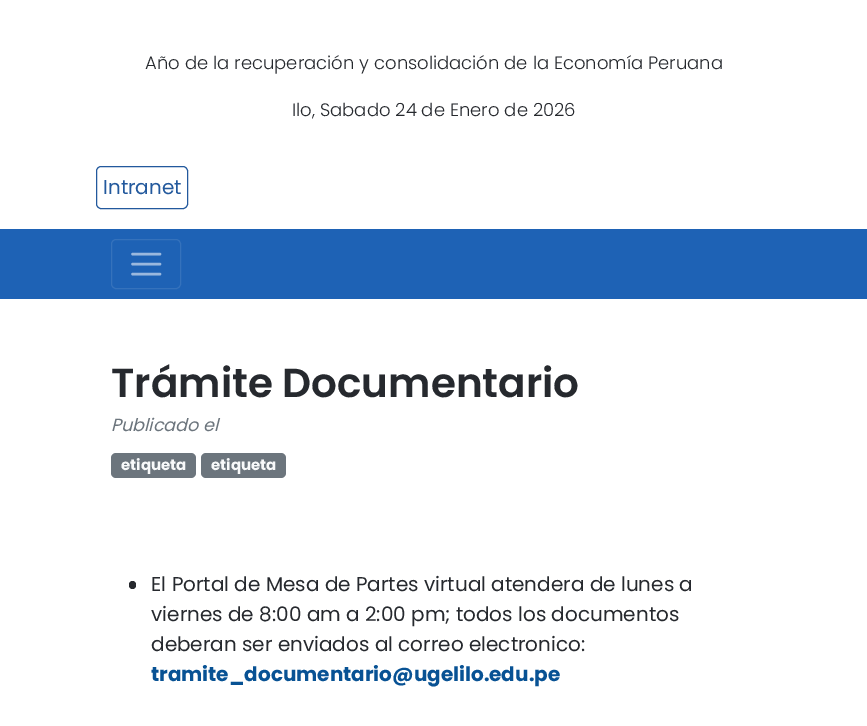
%!PS
<< /PageSize [867 726] >> setpagedevice
/roundrect { 5 dict begin { /r /h /w /y /x } { exch def } forall
  x r add y moveto x w add y 2 copy h add r arct x w add y h add x 1 index r arct
  x y h add x y r arct x y 2 copy exch w add exch r arct closepath end } def
0 726 translate 1 -1 scale
4 setmiterlimit
1 setgray
0 0 867 726 rectfill
/Poppins-Light [18 0 0 -18 0 0] selectfont
0.149 0.161 0.18 setrgbcolor
145 69 moveto (Año de la recuperación y consolidación de la Economía Peruana) show
292 116 moveto (Ilo, Sabado 24 de Enero de 2026) show
0.137 0.349 0.616 setrgbcolor
96.5 166.5 91 42 4.5 roundrect stroke
/Poppins-Regular [20 0 0 -20 0 0] selectfont
103 194 moveto (Intranet) show
0.118 0.384 0.71 setrgbcolor
0 229 867 70 rectfill
0.208 0.447 0.737 setrgbcolor
111.5 239.5 69 49 4.5 roundrect stroke
0.604 0.722 0.871 setrgbcolor
2.5 setlinewidth
1 setlinecap
newpath 132.5 254 moveto 160 254 lineto 132.5 264 moveto 160 264 lineto 132.5 274 moveto 160 274 lineto stroke
/Poppins-SemiBold [40.5 0 0 -40.5 0 0] selectfont
0.149 0.161 0.18 setrgbcolor
111 397 moveto (Trámite Documentario) show
/Poppins-Italic [17.5 0 0 -17.5 0 0] selectfont
0.424 0.459 0.49 setrgbcolor
111 431 moveto (Publicado el) show
111 453 85 25 5 roundrect fill
/Poppins-Bold [15 0 0 -15 0 0] selectfont
0.973 0.976 0.98 setrgbcolor
121 470 moveto (etiqueta) show
0.424 0.459 0.49 setrgbcolor
201 453 85 25 5 roundrect fill
0.973 0.976 0.98 setrgbcolor
211 470 moveto (etiqueta) show
0.149 0.161 0.18 setrgbcolor
129 581 7 8 3.5 roundrect fill
/Poppins-Regular [20 0 0 -20 0 0] selectfont
151 591 moveto (El Portal de Mesa de Partes virtual atendera de lunes a) show
151 621 moveto (viernes de 8:00 am a 2:00 pm; todos los documentos) show
151 651 moveto (deberan ser enviados al correo electronico:) show
/Poppins-Bold [20 0 0 -20 0 0] selectfont
0.031 0.322 0.58 setrgbcolor
151 681 moveto (tramite_documentario@ugelilo.edu.pe) show
showpage
